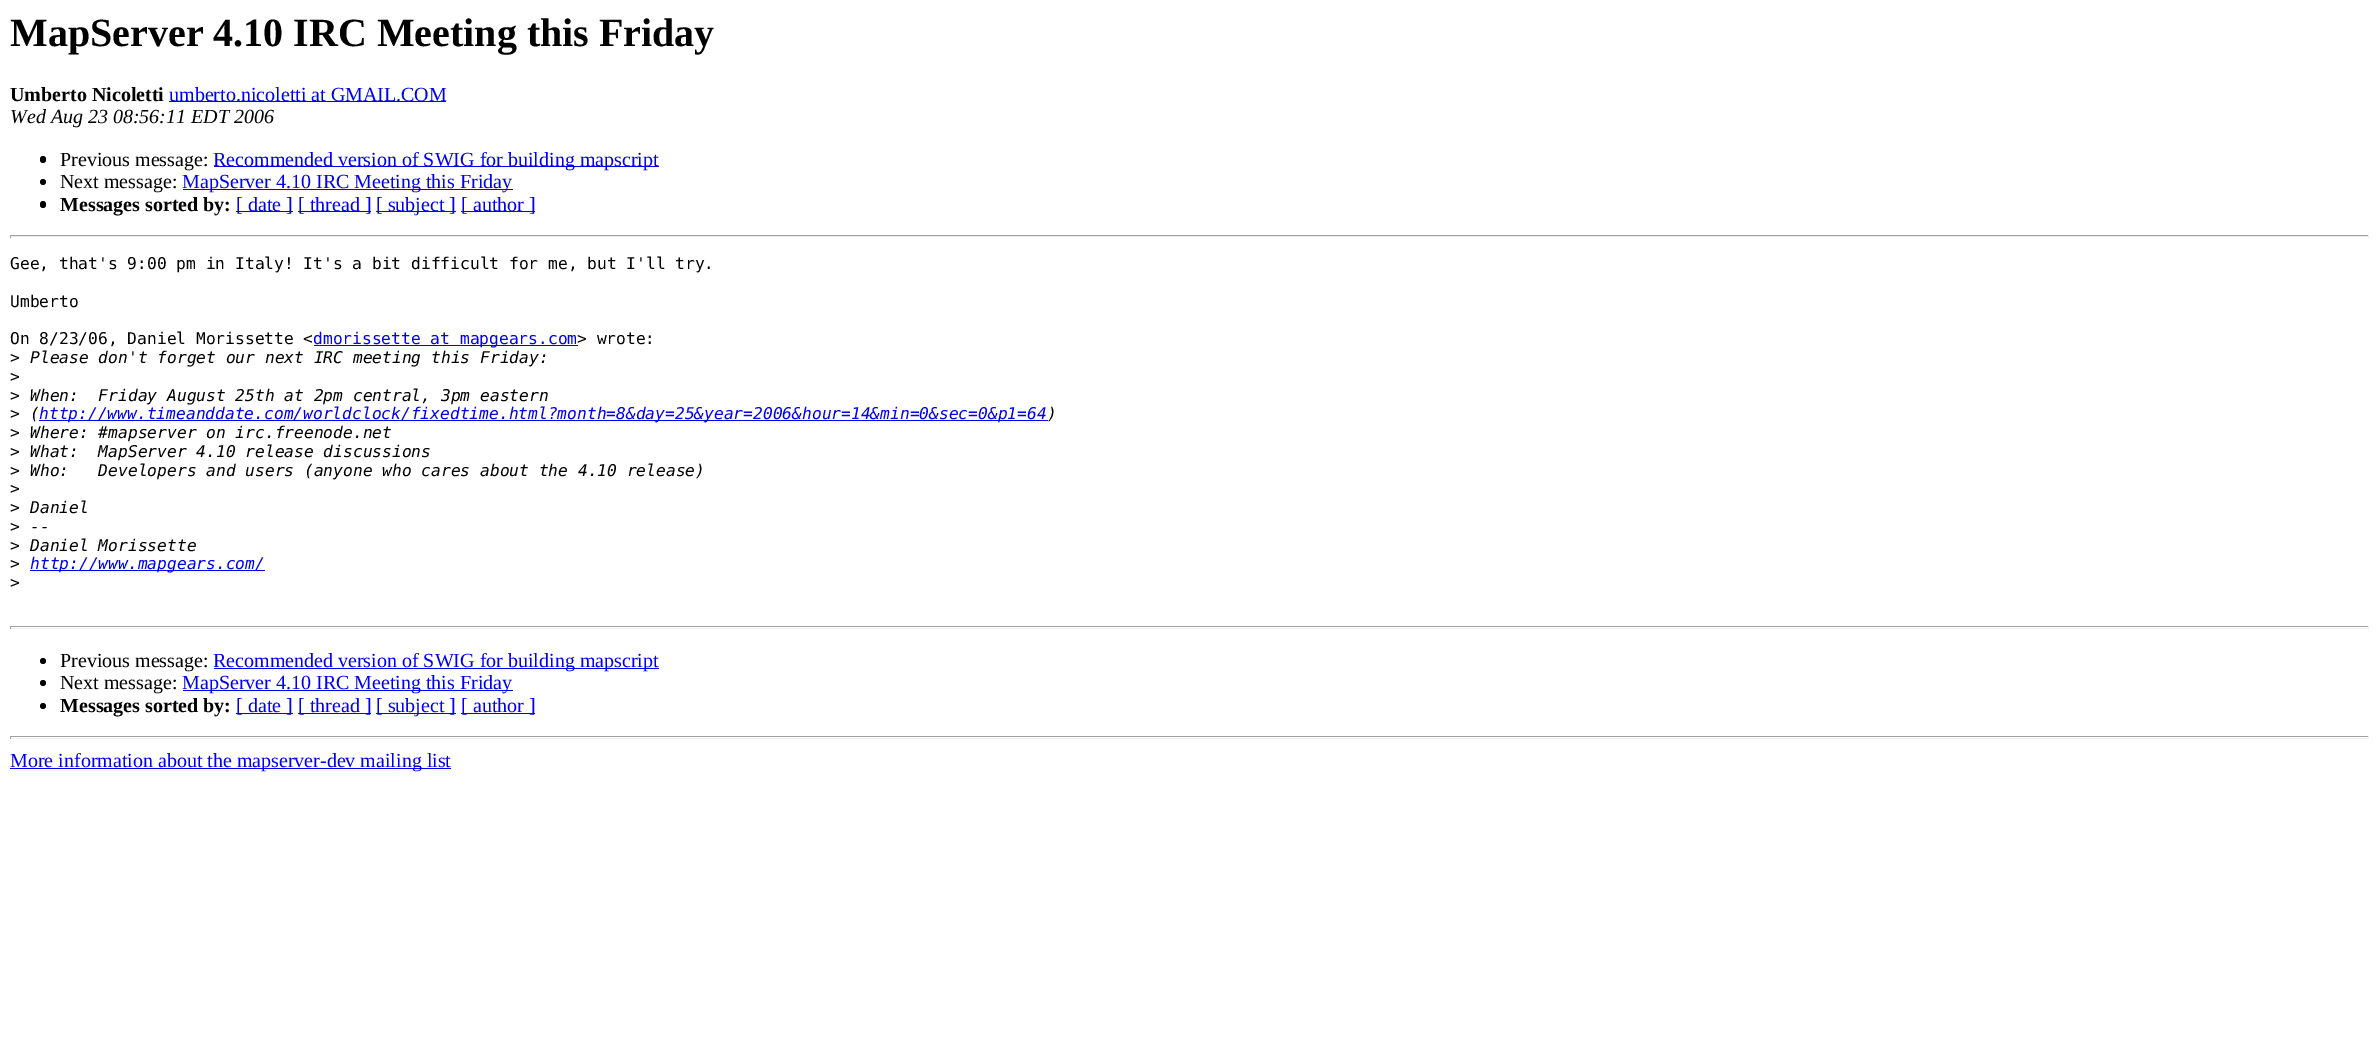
%!PS
<< /PageSize [2378 1058] >> setpagedevice
/roundrect { 5 dict begin { /r /h /w /y /x } { exch def } forall
  x r add y moveto x w add y 2 copy h add r arct x w add y h add x 1 index r arct
  x y h add x y r arct x y 2 copy exch w add exch r arct closepath end } def
0 1058 translate 1 -1 scale
4 setmiterlimit
1 setgray
0 0 2378 1058 rectfill
/LiberationSerif-Bold [40 0 0 -40 0 0] selectfont
0 setgray
10 46 moveto (MapServer 4.10 IRC Meeting this Friday) show
/LiberationSerif-Bold [20 0 0 -20 0 0] selectfont
10 101 moveto (Umberto Nicoletti) show
0 0 0.933 setrgbcolor
169 101 277 1 rectfill
/LiberationSerif-Regular [20 0 0 -20 0 0] selectfont
169 101 moveto (umberto.nicoletti at GMAIL.COM) show
/LiberationSerif-Italic [20 0 0 -20 0 0] selectfont
0 setgray
10 123 moveto (Wed Aug 23 08:56:11 EDT 2006) show
40 156 6 7 3 roundrect fill
/LiberationSerif-Regular [20 0 0 -20 0 0] selectfont
60 166 moveto (Previous message:) show
0 0 0.933 setrgbcolor
214 166 445 1 rectfill
213 166 moveto (Recommended version of SWIG for building mapscript) show
0 setgray
newpath 43 182 3 0 360 arc closepath fill
60 188 moveto (Next message:) show
0 0 0.933 setrgbcolor
183 189 330 1 rectfill
182 188 moveto (MapServer 4.10 IRC Meeting this Friday) show
0 setgray
40 201 6 7 3 roundrect fill
/LiberationSerif-Bold [20 0 0 -20 0 0] selectfont
60 211 moveto (Messages sorted by:) show
0 0 0.933 setrgbcolor
236 211 57 1 rectfill
/LiberationSerif-Regular [20 0 0 -20 0 0] selectfont
236 211 moveto ([ date ]) show
298 211 73 1 rectfill
298 211 moveto ([ thread ]) show
376 211 80 1 rectfill
376 211 moveto ([ subject ]) show
461 211 74 1 rectfill
461 211 moveto ([ author ]) show
0.624 setgray
10 235 2359 1 rectfill
0.933 setgray
2368 235 1 3 rectfill
10 236 2359 1 rectfill
0.624 setgray
10 235 1 3 rectfill
/DejaVuSansMono-Regular [16.25 0 0 -16.25 0 0] selectfont
0 setgray
10 269 moveto (Gee, that's 9:00 pm in Italy! It's a bit difficult for me, but I'll try.) show
10 307 moveto (Umberto) show
10 344 moveto (On 8/23/06, Daniel Morissette <) show
0 0 0.933 setrgbcolor
314 345 264 1 rectfill
313 344 moveto (dmorissette at mapgears.com) show
0 setgray
577 344 moveto (> wrote:) show
10 363 moveto (>) show
/DejaVuSansMono-Italic [16.25 0 0 -16.25 0 0] selectfont
30 363 moveto (Please don't forget our next IRC meeting this Friday:) show
/DejaVuSansMono-Regular [16.25 0 0 -16.25 0 0] selectfont
10 382 moveto (>) show
10 401 moveto (>) show
/DejaVuSansMono-Italic [16.25 0 0 -16.25 0 0] selectfont
30 401 moveto (When:  Friday August 25th at 2pm central, 3pm eastern) show
/DejaVuSansMono-Regular [16.25 0 0 -16.25 0 0] selectfont
10 419 moveto (>) show
/DejaVuSansMono-Italic [16.25 0 0 -16.25 0 0] selectfont
30 419 moveto (\() show
0 0 0.933 setrgbcolor
39 420 1009 1 rectfill
39 419 moveto (http://www.timeanddate.com/worldclock/fixedtime.html?month=8&day=25&year=2006&hour=14&min=0&sec=0&p1=64) show
0 setgray
1047 419 moveto (\)) show
/DejaVuSansMono-Regular [16.25 0 0 -16.25 0 0] selectfont
10 438 moveto (>) show
/DejaVuSansMono-Italic [16.25 0 0 -16.25 0 0] selectfont
30 438 moveto (Where: #mapserver on irc.freenode.net) show
/DejaVuSansMono-Regular [16.25 0 0 -16.25 0 0] selectfont
10 457 moveto (>) show
/DejaVuSansMono-Italic [16.25 0 0 -16.25 0 0] selectfont
30 457 moveto (What:  MapServer 4.10 release discussions) show
/DejaVuSansMono-Regular [16.25 0 0 -16.25 0 0] selectfont
10 476 moveto (>) show
/DejaVuSansMono-Italic [16.25 0 0 -16.25 0 0] selectfont
30 476 moveto (Who:   Developers and users \(anyone who cares about the 4.10 release\)) show
/DejaVuSansMono-Regular [16.25 0 0 -16.25 0 0] selectfont
10 494 moveto (>) show
10 513 moveto (>) show
/DejaVuSansMono-Italic [16.25 0 0 -16.25 0 0] selectfont
30 513 moveto (Daniel) show
/DejaVuSansMono-Regular [16.25 0 0 -16.25 0 0] selectfont
10 532 moveto (>) show
/DejaVuSansMono-Italic [16.25 0 0 -16.25 0 0] selectfont
30 532 moveto (--) show
/DejaVuSansMono-Regular [16.25 0 0 -16.25 0 0] selectfont
10 551 moveto (>) show
/DejaVuSansMono-Italic [16.25 0 0 -16.25 0 0] selectfont
30 551 moveto (Daniel Morissette) show
/DejaVuSansMono-Regular [16.25 0 0 -16.25 0 0] selectfont
10 569 moveto (>) show
0 0 0.933 setrgbcolor
30 570 235 1 rectfill
/DejaVuSansMono-Italic [16.25 0 0 -16.25 0 0] selectfont
30 569 moveto (http://www.mapgears.com/) show
/DejaVuSansMono-Regular [16.25 0 0 -16.25 0 0] selectfont
0 setgray
10 588 moveto (>) show
0.624 setgray
10 626 2359 1 rectfill
0.933 setgray
2368 626 1 3 rectfill
10 628 2359 1 rectfill
0.624 setgray
10 626 1 3 rectfill
0 setgray
newpath 43 661 3 0 360 arc closepath fill
/LiberationSerif-Regular [20 0 0 -20 0 0] selectfont
60 667 moveto (Previous message:) show
0 0 0.933 setrgbcolor
214 668 445 1 rectfill
213 667 moveto (Recommended version of SWIG for building mapscript) show
0 setgray
newpath 43 683 3 0 360 arc closepath fill
60 689 moveto (Next message:) show
0 0 0.933 setrgbcolor
183 690 330 1 rectfill
182 689 moveto (MapServer 4.10 IRC Meeting this Friday) show
0 setgray
newpath 43 706 3 0 360 arc closepath fill
/LiberationSerif-Bold [20 0 0 -20 0 0] selectfont
60 712 moveto (Messages sorted by:) show
0 0 0.933 setrgbcolor
236 713 57 1 rectfill
/LiberationSerif-Regular [20 0 0 -20 0 0] selectfont
236 712 moveto ([ date ]) show
298 713 73 1 rectfill
298 712 moveto ([ thread ]) show
376 713 80 1 rectfill
376 712 moveto ([ subject ]) show
461 713 74 1 rectfill
461 712 moveto ([ author ]) show
0.624 setgray
10 736 2359 1 rectfill
0.933 setgray
2368 736 1 3 rectfill
10 738 2359 1 rectfill
0.624 setgray
10 736 1 3 rectfill
0 0 0.933 setrgbcolor
10 768 441 1 rectfill
10 767 moveto (More information about the mapserver-dev mailing list) show
showpage
